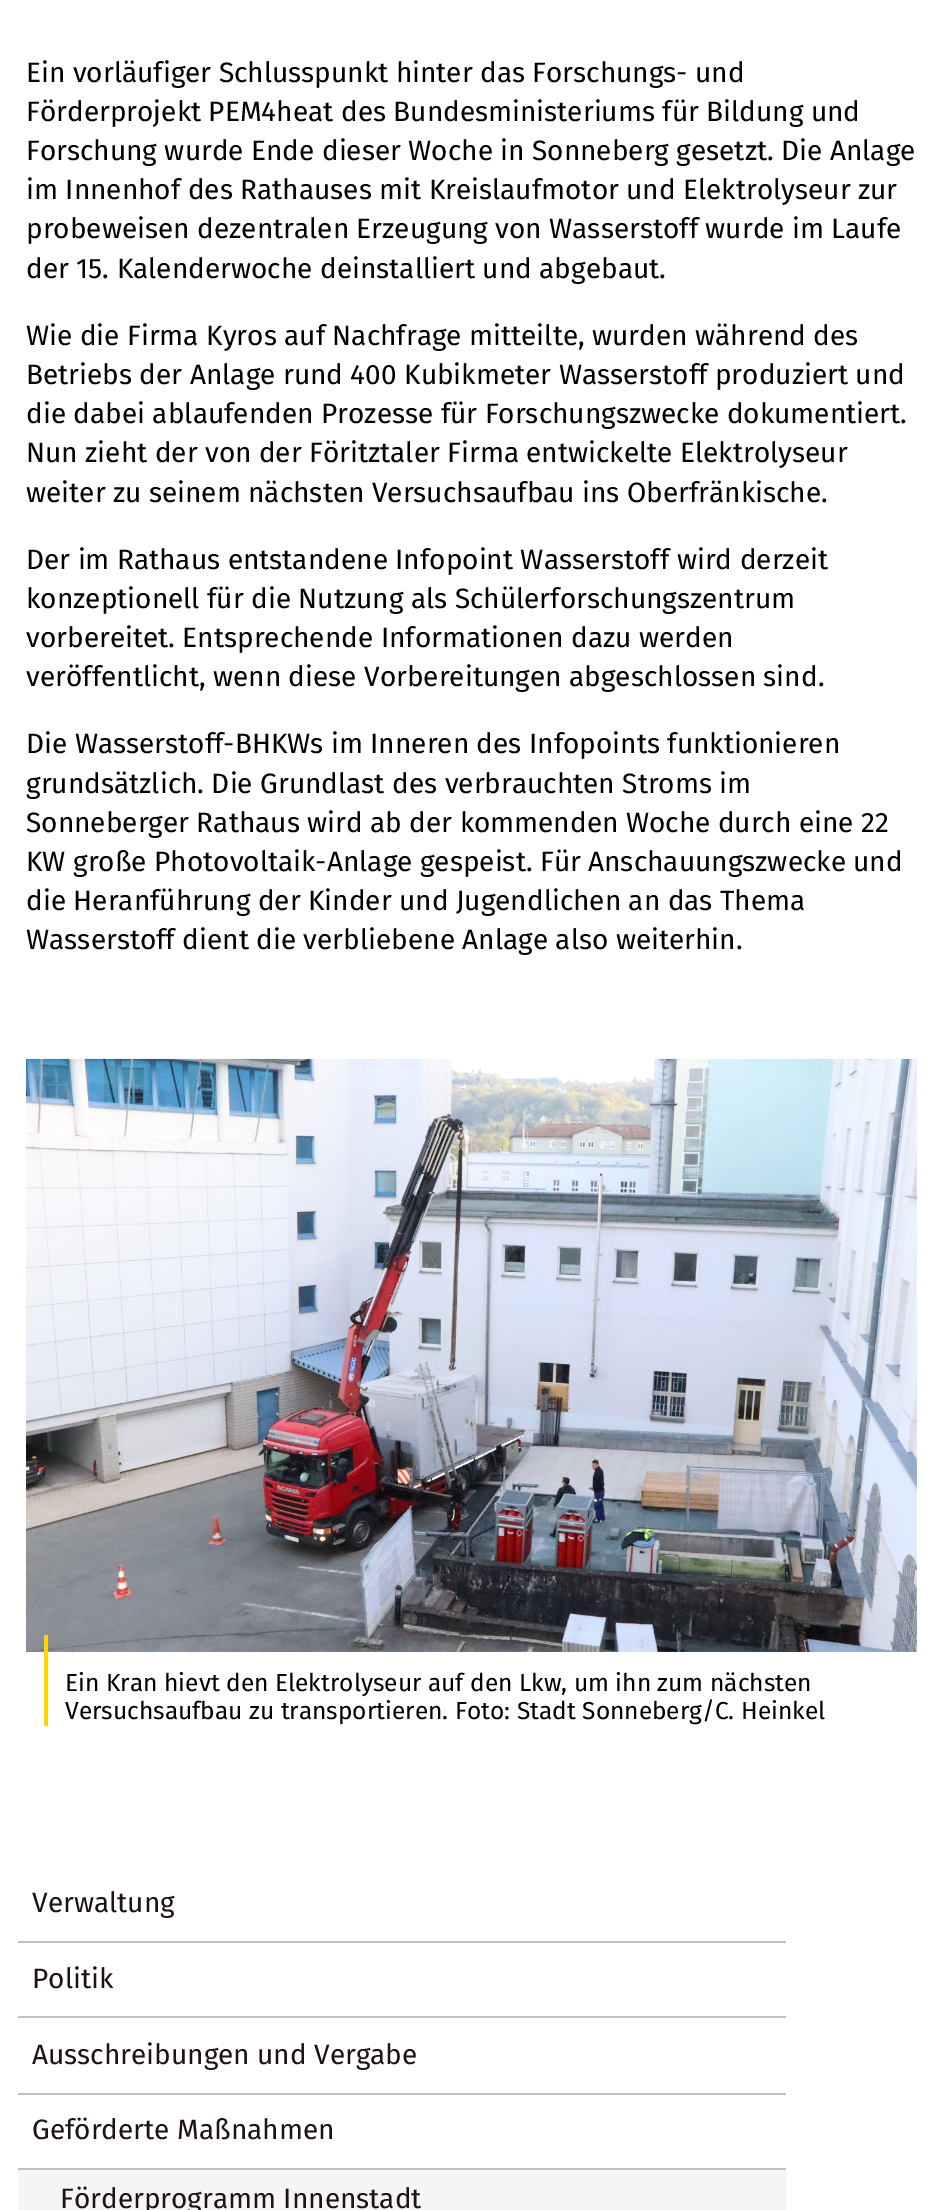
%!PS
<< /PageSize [943 2210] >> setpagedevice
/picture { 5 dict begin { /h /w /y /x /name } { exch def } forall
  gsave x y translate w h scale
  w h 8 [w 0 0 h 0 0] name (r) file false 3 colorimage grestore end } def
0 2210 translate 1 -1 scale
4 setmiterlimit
1 setgray
0 0 943 2210 rectfill
/FiraSans-Regular [28 0 0 -28 0 0] selectfont
0 setgray
26 82 moveto (Ein vorläufiger Schlusspunkt hinter das Forschungs- und) show
26 121 moveto (Förderprojekt PEM4heat des Bundesministeriums für Bildung und) show
26 160 moveto (Forschung wurde Ende dieser Woche in Sonneberg gesetzt. Die Anlage) show
26 199 moveto (im Innenhof des Rathauses mit Kreislaufmotor und Elektrolyseur zur) show
26 238 moveto (probeweisen dezentralen Erzeugung von Wasserstoff wurde im Laufe) show
26 278 moveto (der 15. Kalenderwoche deinstalliert und abgebaut.) show
26 345 moveto (Wie die Firma Kyros auf Nachfrage mitteilte, wurden während des) show
26 384 moveto (Betriebs der Anlage rund 400 Kubikmeter Wasserstoff produziert und) show
26 423 moveto (die dabei ablaufenden Prozesse für Forschungszwecke dokumentiert.) show
26 462 moveto (Nun zieht der von der Föritztaler Firma entwickelte Elektrolyseur) show
26 502 moveto (weiter zu seinem nächsten Versuchsaufbau ins Oberfränkische.) show
26 569 moveto (Der im Rathaus entstandene Infopoint Wasserstoff wird derzeit) show
26 608 moveto (konzeptionell für die Nutzung als Schülerforschungszentrum) show
26 647 moveto (vorbereitet. Entsprechende Informationen dazu werden) show
26 686 moveto (veröffentlicht, wenn diese Vorbereitungen abgeschlossen sind.) show
26 753 moveto (Die Wasserstoff-BHKWs im Inneren des Infopoints funktionieren) show
26 793 moveto (grundsätzlich. Die Grundlast des verbrauchten Stroms im) show
26 832 moveto (Sonneberger Rathaus wird ab der kommenden Woche durch eine 22) show
26 871 moveto (KW große Photovoltaik-Anlage gespeist. Für Anschauungszwecke und) show
26 910 moveto (die Heranführung der Kinder und Jugendlichen an das Thema) show
26 949 moveto (Wasserstoff dient die verbliebene Anlage also weiterhin.) show
(img1.rgb) 26 1058 891 594 picture
1 0.835 0 setrgbcolor
44 1635 4 91 rectfill
/FiraSans-Regular [24.5 0 0 -24.5 0 0] selectfont
0 setgray
65 1691 moveto (Ein Kran hievt den Elektrolyseur auf den Lkw, um ihn zum nächsten) show
65 1719 moveto (Versuchsaufbau zu transportieren. Foto: Stadt Sonneberg/C. Heinkel) show
0.749 0.757 0.765 setrgbcolor
18 1941 768 2 rectfill
/FiraSans-Regular [28 0 0 -28 0 0] selectfont
0.125 0.063 0.094 setrgbcolor
32 1912 moveto (Verwaltung) show
0.749 0.757 0.765 setrgbcolor
18 2016 768 2 rectfill
0.125 0.063 0.094 setrgbcolor
32 1988 moveto (Politik) show
0.749 0.757 0.765 setrgbcolor
18 2093 768 2 rectfill
0.125 0.063 0.094 setrgbcolor
32 2064 moveto (Ausschreibungen und Vergabe) show
32 2139 moveto (Geförderte Maßnahmen) show
0.749 0.757 0.765 setrgbcolor
18 2168 768 2 rectfill
0.961 setgray
18 2170 768 40 rectfill
0.125 0.063 0.094 setrgbcolor
60 2208 moveto (Förderprogramm Innenstadt) show
showpage
